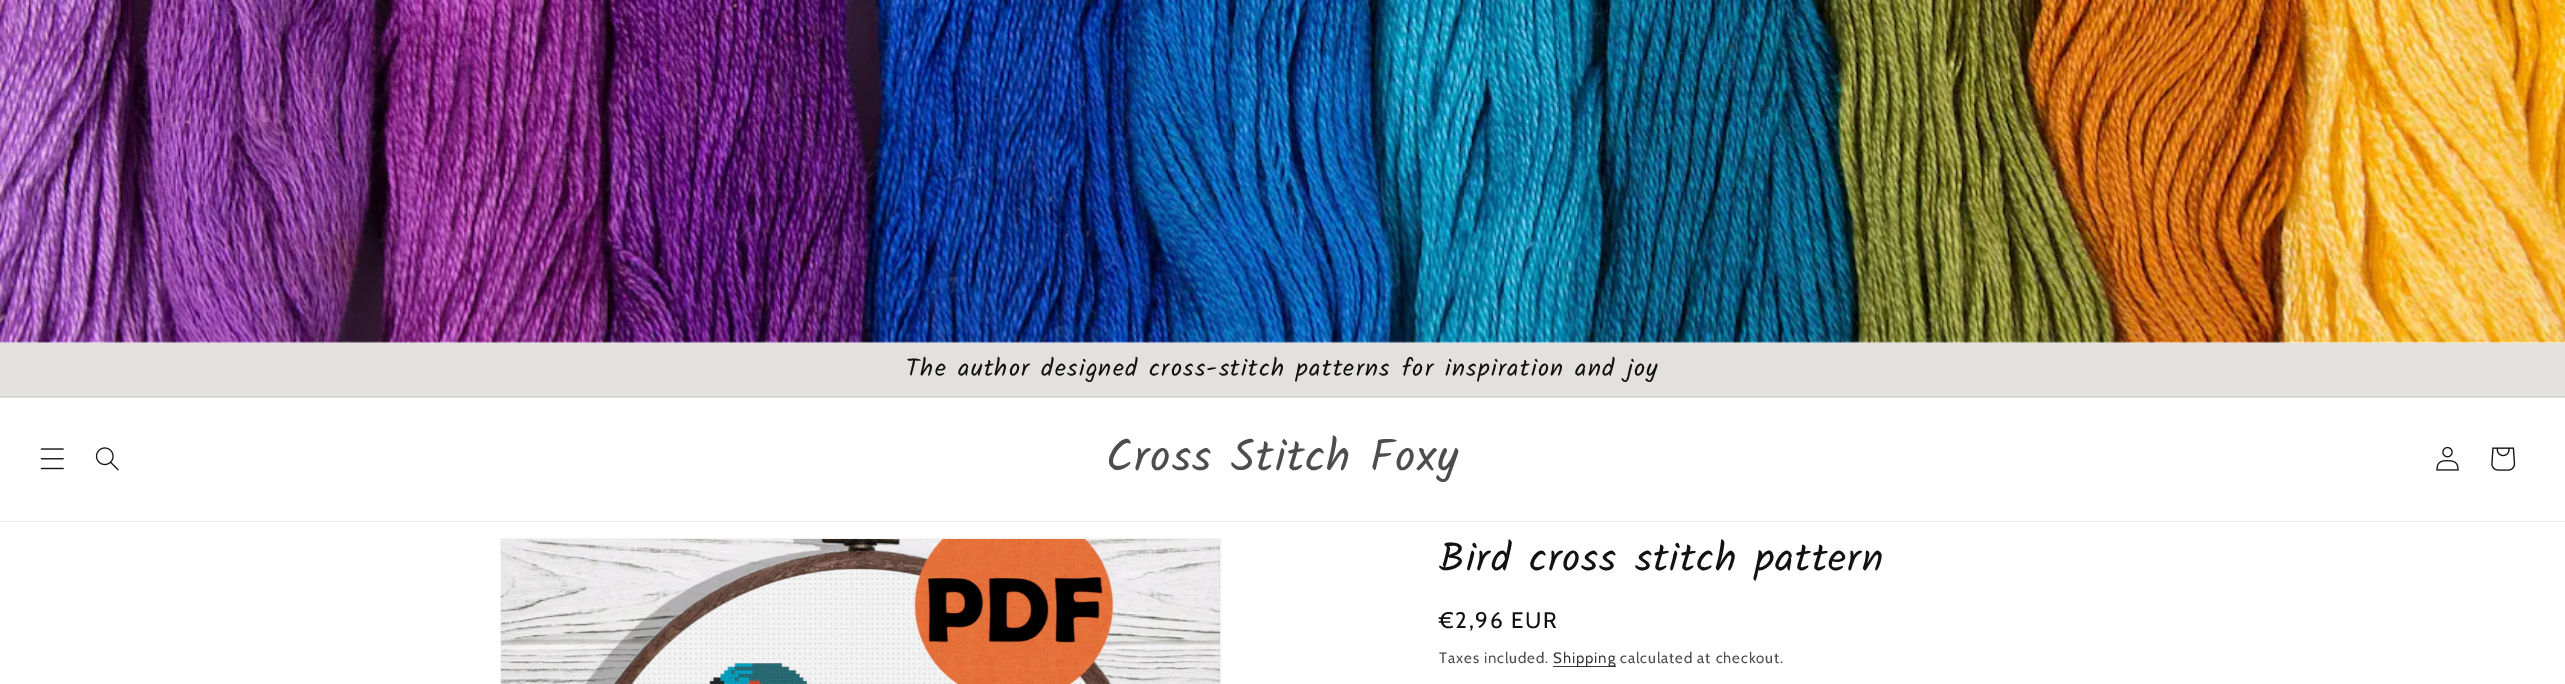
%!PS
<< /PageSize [2565 684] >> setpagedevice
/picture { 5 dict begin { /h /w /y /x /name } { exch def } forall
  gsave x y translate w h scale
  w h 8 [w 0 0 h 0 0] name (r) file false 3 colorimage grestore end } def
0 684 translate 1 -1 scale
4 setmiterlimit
1 setgray
0 0 2565 684 rectfill
(img1.rgb) 0 0 2565 343 picture
0.886 0.882 0.875 setrgbcolor
0 343 2565 55 rectfill
0.82 0.816 0.812 setrgbcolor
0 396 2565 1 rectfill
/Kalam-Regular [24.4 0 0 -24.4 0 0] selectfont
0.071 setgray
906 376 moveto 1.25 0 (The author designed cross-stitch patterns for inspiration and joy) ashow
0.925 setgray
0 521 2565 1 rectfill
(img2.rgb) 40 448 24 22 picture
(img3.rgb) 95 447 24 24 picture
/Kalam-Regular [45 0 0 -45 0 0] selectfont
0.302 setgray
1106 471 moveto 1.1 0 (Cross Stitch Foxy) ashow
(img4.rgb) 2436 446 23 25 picture
(img5.rgb) 2491 447 25 24 picture
0.953 setgray
500.5 538.5 720 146 rectstroke
(img6.rgb) 501 539 719 145 picture
/Kalam-Regular [40 0 0 -40 0 0] selectfont
0.071 setgray
1439 571 moveto 1.1 0 (Bird cross stitch pattern) ashow
/Cabin-Regular [22.5 0 0 -22.5 0 0] selectfont
1439 628 moveto 1.6 0 (€2,96 EUR) ashow
/Cabin-Regular [15 0 0 -15 0 0] selectfont
0.302 setgray
1439 663 moveto 0.9 0 (Taxes included.) ashow
0.212 setgray
1553 666 63 1 rectfill
0.208 setgray
1553 663 moveto 0.9 0 (Shipping) ashow
0.302 setgray
1620 663 moveto 0.9 0 (calculated at checkout.) ashow
showpage
